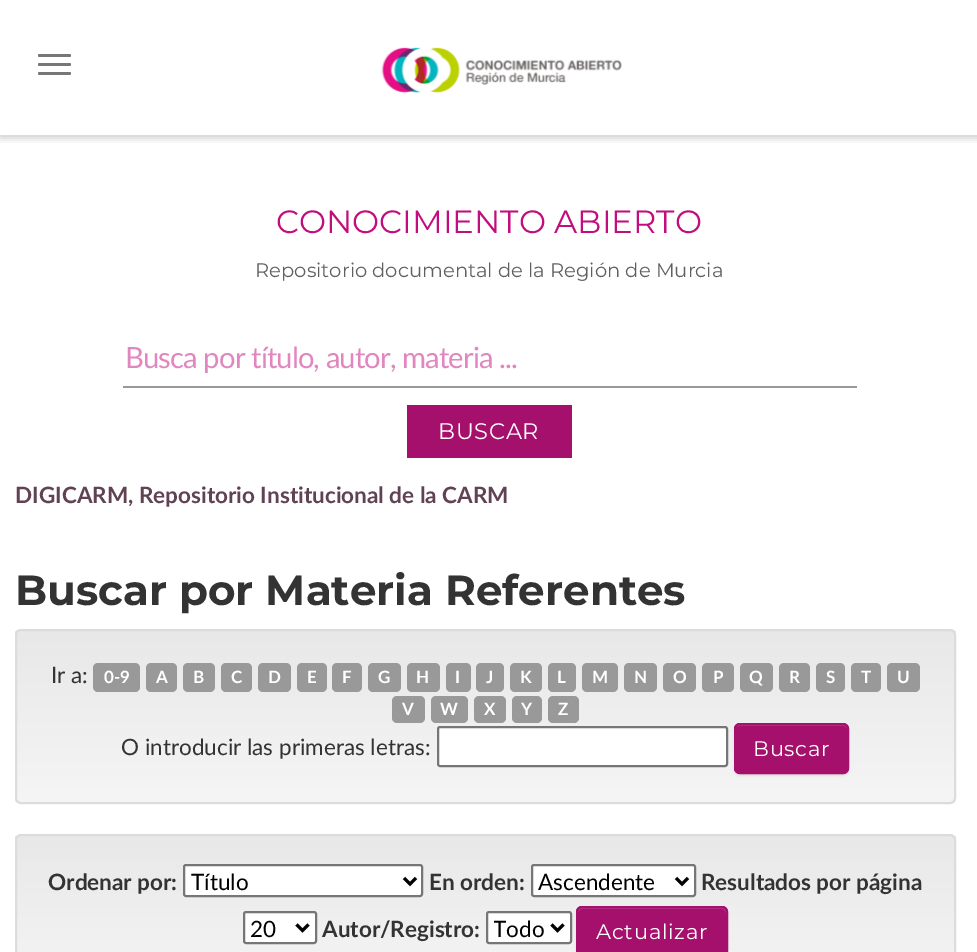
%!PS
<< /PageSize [977 952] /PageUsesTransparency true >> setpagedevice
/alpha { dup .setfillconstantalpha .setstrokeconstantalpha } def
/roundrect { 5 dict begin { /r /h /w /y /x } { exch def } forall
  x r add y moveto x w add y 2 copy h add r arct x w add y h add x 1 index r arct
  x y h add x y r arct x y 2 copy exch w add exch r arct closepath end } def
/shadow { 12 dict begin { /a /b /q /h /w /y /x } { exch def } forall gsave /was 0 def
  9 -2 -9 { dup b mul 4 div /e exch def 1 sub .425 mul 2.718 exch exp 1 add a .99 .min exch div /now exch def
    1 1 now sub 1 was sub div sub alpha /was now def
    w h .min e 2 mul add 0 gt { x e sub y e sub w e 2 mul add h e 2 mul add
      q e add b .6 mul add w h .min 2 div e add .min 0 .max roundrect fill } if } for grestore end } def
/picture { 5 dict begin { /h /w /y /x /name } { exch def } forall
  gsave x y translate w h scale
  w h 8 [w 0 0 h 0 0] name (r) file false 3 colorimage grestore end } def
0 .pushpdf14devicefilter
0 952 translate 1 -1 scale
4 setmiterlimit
1 setgray
0 0 977 952 rectfill
gsave
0 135 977 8 rectclip
0 setgray
0 3 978 135 0 4 0.2 shadow
grestore
0.467 setgray
38 54 33 3 1.5 roundrect fill
38 63 33 3 1.5 roundrect fill
38 72 33 3 1.5 roundrect fill
(img1.rgb) 381 47 241 46 picture
/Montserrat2-Thin [32.25 0 0 -32.25 0 0] selectfont
0.761 0.051 0.494 setrgbcolor
276 233 moveto (CONOCIMIENTO ABIERTO) show
/Montserrat2-Thin [19.6 0 0 -19.6 0 0] selectfont
0.376 setgray
255 277 moveto (Repositorio documental de la Región de Murcia) show
0.6 setgray
123 386 734 2 rectfill
/Lato-Regular [29.25 0 0 -29.25 0 0] selectfont
0.882 0.525 0.749 setrgbcolor
125 368 moveto -0.9 0 (Busca por título, autor, materia ...) ashow
0.647 0.063 0.427 setrgbcolor
407 405 165 53 rectfill
/Montserrat2-Thin [22.5 0 0 -22.5 0 0] selectfont
1 setgray
438 439 moveto 0.75 0 (BUSCAR) ashow
/Lato-Bold [22.5 0 0 -22.5 0 0] selectfont
0.376 0.259 0.329 setrgbcolor
15 503 moveto (DIGICARM, Repositorio Institucional de la CARM) show
/Montserrat-Thin [42 0 0 -42 0 0] selectfont
0.2 setgray
15 605 moveto (Buscar por Materia Referentes) show
gsave
15 629 941 175 6 roundrect clip newpath
gsave newpath 15 630 moveto 956 630 lineto 956 803 lineto 15 803 lineto closepath clip newpath
<< /ShadingType 2 /ColorSpace /DeviceRGB /Coords [485 630 485 803] /Extend [true true] /Function << /FunctionType 2 /Domain [0 1] /C0 [0.91 0.91 0.91] /C1 [0.961 0.961 0.961] /N 1 >> >> shfill grestore
grestore
0.863 setgray
2 setlinewidth
16 630 939 173 5 roundrect stroke
/Lato-Regular [22.5 0 0 -22.5 0 0] selectfont
0.2 setgray
51 683 moveto (Ir a:) show
0.6 setgray
93 663 47 29 5 roundrect fill
/Lato-Bold [17 0 0 -17 0 0] selectfont
1 setgray
104 683 moveto (0-9) show
0.6 setgray
146 663 31 29 5 roundrect fill
1 setgray
156 683 moveto (A) show
0.6 setgray
183 663 32 29 5 roundrect fill
1 setgray
193 683 moveto (B) show
0.6 setgray
221 663 31 29 5 roundrect fill
1 setgray
231 683 moveto (C) show
0.6 setgray
258 663 33 29 5 roundrect fill
1 setgray
268 683 moveto (D) show
0.6 setgray
297 663 30 29 5 roundrect fill
1 setgray
307 683 moveto (E) show
0.6 setgray
332 663 30 29 5 roundrect fill
1 setgray
342 683 moveto (F) show
0.6 setgray
368 663 33 29 5 roundrect fill
1 setgray
378 683 moveto (G) show
0.6 setgray
407 663 33 29 5 roundrect fill
1 setgray
416 683 moveto (H) show
0.6 setgray
446 663 25 29 5 roundrect fill
1 setgray
455 683 moveto (I) show
0.6 setgray
476 663 28 29 5 roundrect fill
1 setgray
486 683 moveto (J) show
0.6 setgray
510 663 32 29 5 roundrect fill
1 setgray
520 683 moveto (K) show
0.6 setgray
548 663 28 29 5 roundrect fill
1 setgray
557 683 moveto (L) show
0.6 setgray
582 663 36 29 5 roundrect fill
1 setgray
592 683 moveto (M) show
0.6 setgray
624 663 33 29 5 roundrect fill
1 setgray
634 683 moveto (N) show
0.6 setgray
663 663 33 29 5 roundrect fill
1 setgray
673 683 moveto (O) show
0.6 setgray
702 663 32 29 5 roundrect fill
1 setgray
713 683 moveto (P) show
0.6 setgray
740 663 33 29 5 roundrect fill
1 setgray
749 683 moveto (Q) show
0.6 setgray
779 663 31 29 5 roundrect fill
1 setgray
789 683 moveto (R) show
0.6 setgray
816 663 29 29 5 roundrect fill
1 setgray
826 683 moveto (S) show
0.6 setgray
851 663 30 29 5 roundrect fill
1 setgray
861 683 moveto (T) show
0.6 setgray
887 663 33 29 5 roundrect fill
1 setgray
897 683 moveto (U) show
0.6 setgray
392 696 33 27 5 roundrect fill
1 setgray
402 715 moveto (V) show
0.6 setgray
431 696 37 27 5 roundrect fill
1 setgray
440 715 moveto (W) show
0.6 setgray
474 696 32 27 5 roundrect fill
1 setgray
484 715 moveto (X) show
0.6 setgray
512 696 30 27 5 roundrect fill
1 setgray
521 715 moveto (Y) show
0.6 setgray
548 696 31 27 5 roundrect fill
1 setgray
558 715 moveto (Z) show
/Lato-Regular [22.5 0 0 -22.5 0 0] selectfont
0.2 setgray
121 755 moveto (O introducir las primeras letras:) show
1 setgray
438 727 289 39 2 roundrect gsave fill grestore
0.463 setgray
stroke
0 setgray
734 725 115 51 6 1 0.07 shadow
0.647 0.063 0.427 setrgbcolor
734 723 115 51 6 roundrect fill
0.702 0.204 0.514 setrgbcolor
newpath 740 726 moveto 843 726 lineto 845 726 848 728 848 730 curveto 848 727 846 725 843 725 curveto 740 725 lineto 737 725 735 727 735 730 curveto 735 728 737 726 740 726 curveto closepath fill
0.647 0.063 0.427 setrgbcolor
735 724 113 49 5 roundrect stroke
/Montserrat2-Thin [21 0 0 -21 0 0] selectfont
1 setgray
753 756 moveto 0.75 0 (Buscar) ashow
gsave
15 834 941 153 6 roundrect clip newpath
gsave newpath 15 836 moveto 956 836 lineto 956 952 lineto 15 952 lineto closepath clip newpath
<< /ShadingType 2 /ColorSpace /DeviceRGB /Coords [485 836 485 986] /Extend [true true] /Function << /FunctionType 2 /Domain [0 1] /C0 [0.91 0.91 0.91] /C1 [0.961 0.961 0.961] /N 1 >> >> shfill grestore
grestore
0.863 setgray
16 835 939 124 5 roundrect stroke
/Lato-Bold [22.5 0 0 -22.5 0 0] selectfont
0.2 setgray
48 890 moveto (Ordenar por:) show
1 setgray
184 865 238 31 2 roundrect gsave fill grestore
0.463 setgray
stroke
0 setgray
3 setlinewidth
newpath 404 878 moveto 410 884 lineto 416 878 lineto stroke
/Lato-Regular [22.5 0 0 -22.5 0 0] selectfont
191 890 moveto (Título) show
/Lato-Bold [22.5 0 0 -22.5 0 0] selectfont
0.2 setgray
429 890 moveto (En orden:) show
1 setgray
532 865 163 31 2 roundrect gsave fill grestore
0.463 setgray
2 setlinewidth
stroke
0 setgray
3 setlinewidth
newpath 676 878 moveto 682 884 lineto 688 878 lineto stroke
/Lato-Regular [22.5 0 0 -22.5 0 0] selectfont
538 890 moveto (Ascendente) show
/Lato-Bold [22.5 0 0 -22.5 0 0] selectfont
0.2 setgray
701 890 moveto (Resultados por página) show
1 setgray
244 912 72 31 2 roundrect gsave fill grestore
0.463 setgray
2 setlinewidth
stroke
0 setgray
3 setlinewidth
newpath 296.5 924.5 moveto 302.5 930.5 lineto 308.5 924.5 lineto stroke
/Lato-Regular [22.5 0 0 -22.5 0 0] selectfont
250 937 moveto (20) show
/Lato-Bold [22.5 0 0 -22.5 0 0] selectfont
0.2 setgray
322 937 moveto (Autor/Registro:) show
1 setgray
487 912 84 31 2 roundrect gsave fill grestore
0.463 setgray
2 setlinewidth
stroke
0 setgray
3 setlinewidth
newpath 551.5 924.5 moveto 557.5 930.5 lineto 563.5 924.5 lineto stroke
gsave
494 912 52 30 rectclip
/Lato-Regular [22.5 0 0 -22.5 0 0] selectfont
493 937 moveto (Todo) show
grestore
576 908 152 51 6 1 0.07 shadow
0.647 0.063 0.427 setrgbcolor
576 906 152 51 6 roundrect fill
0.702 0.204 0.514 setrgbcolor
newpath 582 909 moveto 722 909 lineto 724 909 726 911 726 914 curveto 726 913 lineto 726 910 724 908 721 908 curveto 583 908 lineto 580 908 578 910 578 913 curveto 578 914 lineto 578 911 580 909 582 909 curveto closepath fill
0.647 0.063 0.427 setrgbcolor
2 setlinewidth
577 907 150 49 5 roundrect stroke
/Montserrat2-Thin [21 0 0 -21 0 0] selectfont
1 setgray
596 939 moveto 0.75 0 (Actualizar) ashow
.poppdf14devicefilter showpage
